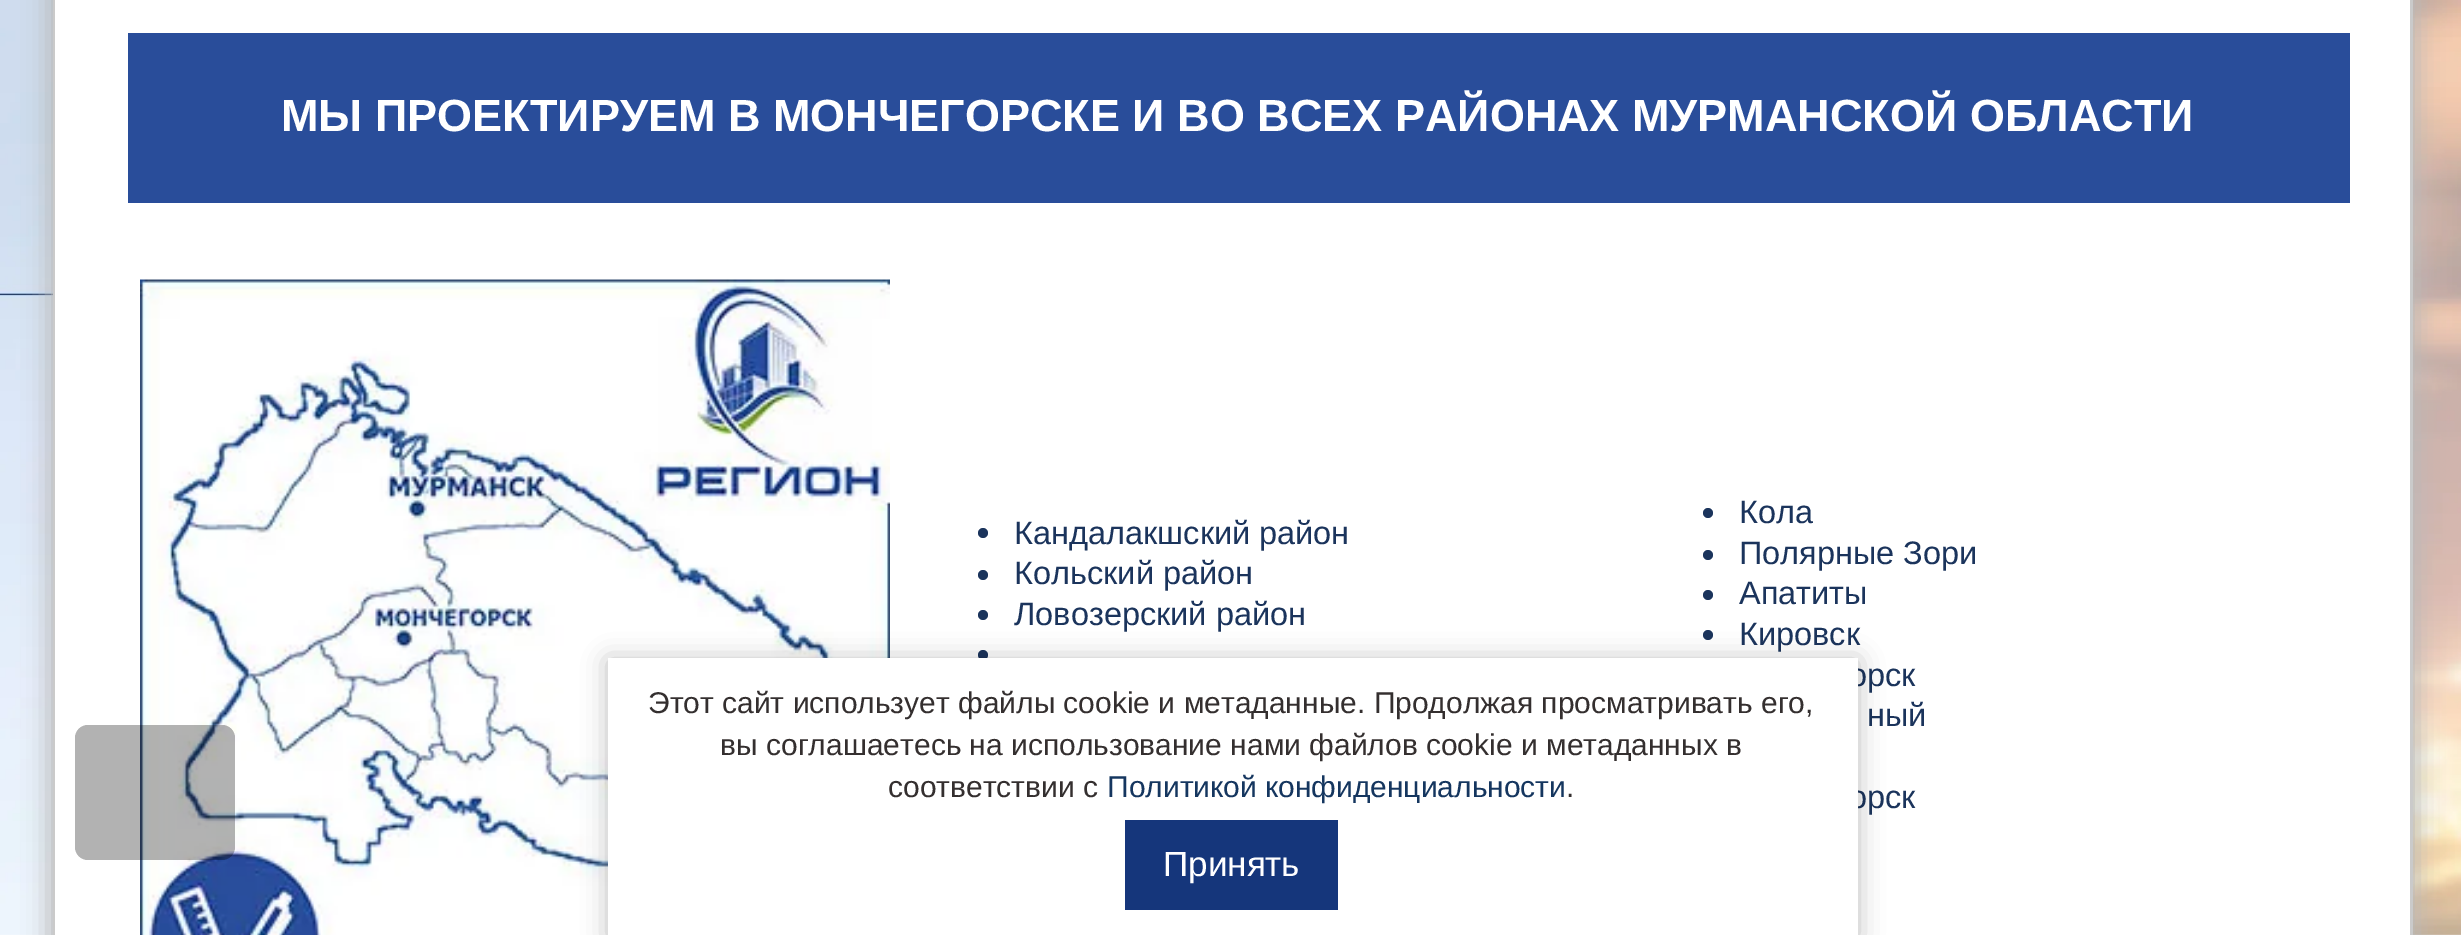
%!PS
<< /PageSize [2461 935] /PageUsesTransparency true >> setpagedevice
/alpha { dup .setfillconstantalpha .setstrokeconstantalpha } def
/roundrect { 5 dict begin { /r /h /w /y /x } { exch def } forall
  x r add y moveto x w add y 2 copy h add r arct x w add y h add x 1 index r arct
  x y h add x y r arct x y 2 copy exch w add exch r arct closepath end } def
/shadow { 12 dict begin { /a /b /q /h /w /y /x } { exch def } forall gsave /was 0 def
  9 -2 -9 { dup b mul 4 div /e exch def 1 sub .425 mul 2.718 exch exp 1 add a .99 .min exch div /now exch def
    1 1 now sub 1 was sub div sub alpha /was now def
    w h .min e 2 mul add 0 gt { x e sub y e sub w e 2 mul add h e 2 mul add
      q e add b .6 mul add w h .min 2 div e add .min 0 .max roundrect fill } if } for grestore end } def
/picture { 5 dict begin { /h /w /y /x /name } { exch def } forall
  gsave x y translate w h scale
  w h 8 [w 0 0 h 0 0] name (r) file false 3 colorimage grestore end } def
0 .pushpdf14devicefilter
0 935 translate 1 -1 scale
4 setmiterlimit
1 setgray
0 0 2461 935 rectfill
(img1.rgb) 0 0 2461 935 picture
0.725 setgray
48 -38 2370 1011 0 12.5 1 shadow
0.792 setgray
2410 0 3 935 rectfill
53 0 2 935 rectfill
1 setgray
55 0 2355 935 rectfill
(img2.rgb) 140 279 750 656 picture
0.3 alpha
0 setgray
75 725 160 135 13 roundrect fill
1 alpha
0.161 0.302 0.604 setrgbcolor
128 33 2222 170 rectfill
/LiberationSans-Bold [45 0 0 -45 0 0] selectfont
1 setgray
281 131 moveto (МЫ ПРОЕКТИРУЕМ В МОНЧЕГОРСКЕ И ВО ВСЕХ РАЙОНАХ МУРМАНСКОЙ ОБЛАСТИ) show
0.106 0.204 0.361 setrgbcolor
newpath 983 533 5 0 360 arc closepath fill
/LiberationSans-Regular [32.5 0 0 -32.5 0 0] selectfont
1014 544 moveto (Кандалакшский район) show
newpath 983 575 5 0 360 arc closepath fill
1014 584 moveto (Кольский район) show
newpath 983 615 5 0 360 arc closepath fill
1014 625 moveto (Ловозерский район) show
newpath 983 655 5 0 360 arc closepath fill
newpath 1708 513 5 0 360 arc closepath fill
1739 523 moveto (Кола) show
newpath 1708 555 5 0 360 arc closepath fill
1739 564 moveto (Полярные Зори) show
newpath 1708 595 5 0 360 arc closepath fill
1739 604 moveto (Апатиты) show
newpath 1708 635 5 0 360 arc closepath fill
1739 645 moveto (Кировск) show
1849 686 moveto (орск) show
1867 726 moveto (ный) show
1849 808 moveto (орск) show
0 setgray
608 660 1250 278 0 12.5 0.25 shadow
1 setgray
608 658 1250 277 rectfill
/LiberationSans-Regular [30 0 0 -30 0 0] selectfont
0.204 0.184 0.184 setrgbcolor
648 713 moveto (Этот сайт использует файлы cookie и метаданные. Продолжая просматривать его,) show
720 755 moveto (вы соглашаетесь на использование нами файлов cookie и метаданных в) show
888 797 moveto (соответствии с) show
0.082 0.212 0.373 setrgbcolor
1107 797 moveto (Политикой конфиденциальности) show
0.204 0.184 0.184 setrgbcolor
1566 797 moveto (.) show
0.082 0.212 0.482 setrgbcolor
1125 820 213 90 rectfill
/LiberationSans-Regular [35 0 0 -35 0 0] selectfont
1 setgray
1163 876 moveto (Принять) show
.poppdf14devicefilter showpage
